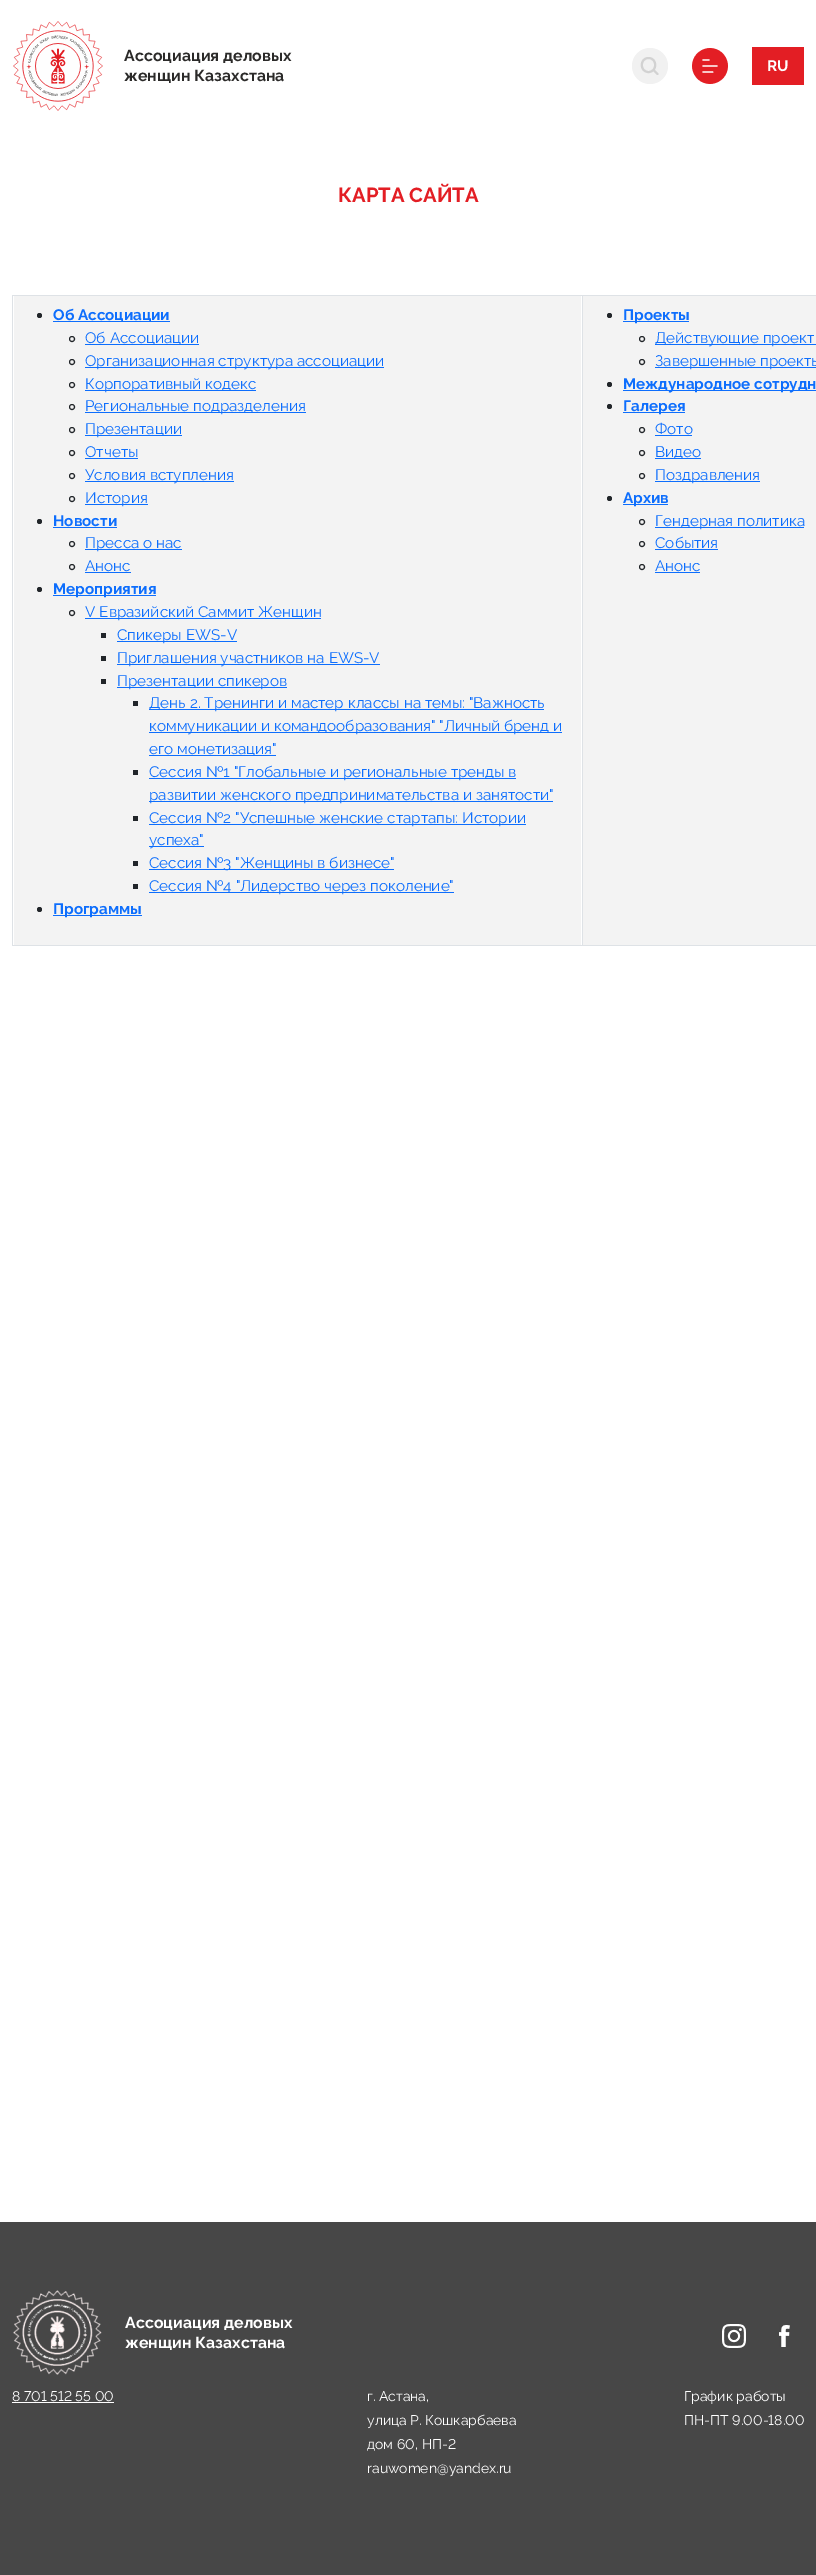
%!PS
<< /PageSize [816 2575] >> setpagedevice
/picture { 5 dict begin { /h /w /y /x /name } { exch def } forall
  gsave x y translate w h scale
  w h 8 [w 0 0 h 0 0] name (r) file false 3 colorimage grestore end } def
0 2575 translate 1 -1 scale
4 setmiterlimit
1 setgray
0 0 816 2575 rectfill
(img1.rgb) 13 21 90 90 picture
/Raleway-Bold [15.9 0 0 -15.9 0 0] selectfont
0.169 0.165 0.161 setrgbcolor
124 61 moveto (Ассоциация деловых) show
124 81 moveto (женщин Казахстана) show
0.945 setgray
newpath 650 66 18 0 360 arc closepath fill
0.824 setgray
2 setlinewidth
1 setlinecap
1 setlinejoin
newpath 648.5 72 moveto 657.5 72 657.5 58 648.5 58 curveto 639.5 58 639.5 72 648.5 72 curveto closepath 653.5 70 moveto 657.5 74 lineto stroke
(img2.rgb) 692 48 36 36 picture
0.89 0.118 0.141 setrgbcolor
752 47 52 38 rectfill
/Raleway-Bold [15.25 0 0 -15.25 0 0] selectfont
1 setgray
767 71 moveto (RU) show
/Raleway-Bold [20.25 0 0 -20.25 0 0] selectfont
0.89 0.118 0.141 setrgbcolor
338 202 moveto (КАРТА САЙТА) show
0.871 0.886 0.902 setrgbcolor
12 295 804 1 rectfill
12 945 804 1 rectfill
12 295 1 651 rectfill
0.953 setgray
14 296 567 649 rectfill
0.129 0.145 0.161 setrgbcolor
newpath 39.5 315.5 2.5 0 360 arc closepath fill
0.051 0.431 0.992 setrgbcolor
53 321 117 1 rectfill
/Raleway-Bold [15.25 0 0 -15.25 0 0] selectfont
53 320 moveto (Об Ассоциации) show
0.129 0.145 0.161 setrgbcolor
1 setlinewidth
0 setlinecap
0 setlinejoin
newpath 72 339 2.5 0 360 arc closepath stroke
0.051 0.431 0.992 setrgbcolor
85 344 114 1 rectfill
/Raleway-Regular [15.25 0 0 -15.25 0 0] selectfont
85 343 moveto (Об Ассоциации) show
0.129 0.145 0.161 setrgbcolor
newpath 72 362 2.5 0 360 arc closepath stroke
0.051 0.431 0.992 setrgbcolor
85 367 299 1 rectfill
85 366 moveto (Организационная структура ассоциации) show
0.129 0.145 0.161 setrgbcolor
newpath 72 385 2.5 0 360 arc closepath stroke
0.051 0.431 0.992 setrgbcolor
85 390 171 1 rectfill
85 389 moveto (Корпоративный кодекс) show
0.129 0.145 0.161 setrgbcolor
newpath 72 407 2.5 0 360 arc closepath stroke
0.051 0.431 0.992 setrgbcolor
85 412 221 1 rectfill
85 411 moveto (Региональные подразделения) show
0.129 0.145 0.161 setrgbcolor
newpath 72 430 2.5 0 360 arc closepath stroke
0.051 0.431 0.992 setrgbcolor
85 435 97 1 rectfill
85 434 moveto (Презентации) show
0.129 0.145 0.161 setrgbcolor
newpath 72 453 2.5 0 360 arc closepath stroke
0.051 0.431 0.992 setrgbcolor
85 457 moveto (Отчеты) show
85 458 53 1 rectfill
0.129 0.145 0.161 setrgbcolor
newpath 72 476 2.5 0 360 arc closepath stroke
0.051 0.431 0.992 setrgbcolor
85 481 149 1 rectfill
85 480 moveto (Условия вступления) show
0.129 0.145 0.161 setrgbcolor
newpath 72 499 2.5 0 360 arc closepath stroke
0.051 0.431 0.992 setrgbcolor
85 504 63 1 rectfill
85 503 moveto (История) show
0.129 0.145 0.161 setrgbcolor
newpath 39.5 521.5 2.5 0 360 arc closepath fill
/Raleway-Bold [15.25 0 0 -15.25 0 0] selectfont
0.051 0.431 0.992 setrgbcolor
53 526 moveto (Новости) show
53 527 64 1 rectfill
0.129 0.145 0.161 setrgbcolor
newpath 72 544 2.5 0 360 arc closepath stroke
0.051 0.431 0.992 setrgbcolor
85 549 97 1 rectfill
/Raleway-Regular [15.25 0 0 -15.25 0 0] selectfont
85 548 moveto (Пресса о нас) show
0.129 0.145 0.161 setrgbcolor
newpath 72 567 2.5 0 360 arc closepath stroke
0.051 0.431 0.992 setrgbcolor
85 571 moveto (Анонс) show
85 572 46 1 rectfill
0.129 0.145 0.161 setrgbcolor
newpath 39.5 589.5 2.5 0 360 arc closepath fill
0.051 0.431 0.992 setrgbcolor
53 595 103 1 rectfill
/Raleway-Bold [15.25 0 0 -15.25 0 0] selectfont
53 594 moveto (Мероприятия) show
0.129 0.145 0.161 setrgbcolor
newpath 72 613 2.5 0 360 arc closepath stroke
0.051 0.431 0.992 setrgbcolor
85 618 236 1 rectfill
/Raleway-Regular [15.25 0 0 -15.25 0 0] selectfont
85 617 moveto (V Евразийский Саммит Женщин) show
0.129 0.145 0.161 setrgbcolor
101 633 5 5 rectfill
0.051 0.431 0.992 setrgbcolor
117 641 120 1 rectfill
117 640 moveto (Спикеры EWS-V) show
0.129 0.145 0.161 setrgbcolor
101 656 5 5 rectfill
0.051 0.431 0.992 setrgbcolor
117 664 263 1 rectfill
117 663 moveto (Приглашения участников на EWS-V) show
0.129 0.145 0.161 setrgbcolor
101 679 5 5 rectfill
0.051 0.431 0.992 setrgbcolor
117 687 170 1 rectfill
117 686 moveto (Презентации спикеров) show
0.129 0.145 0.161 setrgbcolor
133 701 5 5 rectfill
0.051 0.431 0.992 setrgbcolor
149 709 395 1 rectfill
149 708 moveto (День 2. Тренинги и мастер классы на темы: "Важность) show
149 732 413 1 rectfill
149 731 moveto (коммуникации и командообразования" "Личный бренд и) show
149 755 127 1 rectfill
149 754 moveto (его монетизация") show
0.129 0.145 0.161 setrgbcolor
133 770 5 5 rectfill
0.051 0.431 0.992 setrgbcolor
149 778 367 1 rectfill
149 777 moveto (Сессия №1 "Глобальные и региональные тренды в) show
149 801 404 1 rectfill
149 800 moveto (развитии женского предпринимательства и занятости") show
0.129 0.145 0.161 setrgbcolor
133 816 5 5 rectfill
0.051 0.431 0.992 setrgbcolor
149 824 377 1 rectfill
149 823 moveto (Сессия №2 "Успешные женские стартапы: Истории) show
149 846 55 1 rectfill
149 845 moveto (успеха") show
0.129 0.145 0.161 setrgbcolor
133 861 5 5 rectfill
0.051 0.431 0.992 setrgbcolor
149 869 245 1 rectfill
149 868 moveto (Сессия №3 "Женщины в бизнесе") show
0.129 0.145 0.161 setrgbcolor
133 884 5 5 rectfill
0.051 0.431 0.992 setrgbcolor
149 892 305 1 rectfill
149 891 moveto (Сессия №4 "Лидерство через поколение") show
0.129 0.145 0.161 setrgbcolor
newpath 39.5 909.5 2.5 0 360 arc closepath fill
0.051 0.431 0.992 setrgbcolor
53 915 89 1 rectfill
/Raleway-Bold [15.25 0 0 -15.25 0 0] selectfont
53 914 moveto (Программы) show
0.871 0.886 0.902 setrgbcolor
582 295 1 651 rectfill
0.953 setgray
583 296 233 649 rectfill
0.129 0.145 0.161 setrgbcolor
newpath 609.5 315.5 2.5 0 360 arc closepath fill
0.051 0.431 0.992 setrgbcolor
623 321 66 1 rectfill
623 320 moveto (Проекты) show
0.129 0.145 0.161 setrgbcolor
newpath 642 339 2.5 0 360 arc closepath stroke
0.051 0.431 0.992 setrgbcolor
655 344 161 1 rectfill
/Raleway-Regular [15.25 0 0 -15.25 0 0] selectfont
655 343 moveto (Действующие проект) show
0.129 0.145 0.161 setrgbcolor
newpath 642 362 2.5 0 360 arc closepath stroke
0.051 0.431 0.992 setrgbcolor
655 367 161 1 rectfill
655 366 moveto (Завершенные проекты) show
0.129 0.145 0.161 setrgbcolor
newpath 609.5 384.5 2.5 0 360 arc closepath fill
0.051 0.431 0.992 setrgbcolor
623 390 193 1 rectfill
/Raleway-Bold [15.25 0 0 -15.25 0 0] selectfont
623 389 moveto (Международное сотрудн) show
0.129 0.145 0.161 setrgbcolor
newpath 609.5 406.5 2.5 0 360 arc closepath fill
0.051 0.431 0.992 setrgbcolor
623 412 62 1 rectfill
623 411 moveto (Галерея) show
0.129 0.145 0.161 setrgbcolor
newpath 642 430 2.5 0 360 arc closepath stroke
/Raleway-Regular [15.25 0 0 -15.25 0 0] selectfont
0.051 0.431 0.992 setrgbcolor
655 434 moveto (Фото) show
655 435 37 1 rectfill
0.129 0.145 0.161 setrgbcolor
newpath 642 453 2.5 0 360 arc closepath stroke
0.051 0.431 0.992 setrgbcolor
655 458 46 1 rectfill
655 457 moveto (Видео) show
0.129 0.145 0.161 setrgbcolor
newpath 642 476 2.5 0 360 arc closepath stroke
0.051 0.431 0.992 setrgbcolor
655 481 105 1 rectfill
655 480 moveto (Поздравления) show
0.129 0.145 0.161 setrgbcolor
newpath 609.5 498.5 2.5 0 360 arc closepath fill
0.051 0.431 0.992 setrgbcolor
623 504 45 1 rectfill
/Raleway-Bold [15.25 0 0 -15.25 0 0] selectfont
623 503 moveto (Архив) show
0.129 0.145 0.161 setrgbcolor
newpath 642 522 2.5 0 360 arc closepath stroke
0.051 0.431 0.992 setrgbcolor
655 527 149 1 rectfill
/Raleway-Regular [15.25 0 0 -15.25 0 0] selectfont
655 526 moveto (Гендерная политика) show
0.129 0.145 0.161 setrgbcolor
newpath 642 544 2.5 0 360 arc closepath stroke
0.051 0.431 0.992 setrgbcolor
655 548 moveto (События) show
655 549 63 1 rectfill
0.129 0.145 0.161 setrgbcolor
newpath 642 567 2.5 0 360 arc closepath stroke
0.051 0.431 0.992 setrgbcolor
655 571 moveto (Анонс) show
655 572 45 1 rectfill
0.278 setgray
0 2222 816 353 rectfill
(img3.rgb) 13 2290 89 85 picture
/Raleway-Bold [15.9 0 0 -15.9 0 0] selectfont
1 setgray
125 2328 moveto (Ассоциация деловых) show
125 2348 moveto (женщин Казахстана) show
(img4.rgb) 722 2324 24 24 picture
(img5.rgb) 779 2325 11 22 picture
/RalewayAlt-Regular [14 0 0 -14 0 0] selectfont
12 2401 moveto (8 701 512 55 00) show
12 2402 102 1 rectfill
/Raleway-Regular [14 0 0 -14 0 0] selectfont
367 2401 moveto (г. Астана,) show
367 2425 moveto (улица Р. Кошкарбаева) show
/RalewayAlt-Regular [14 0 0 -14 0 0] selectfont
367 2449 moveto (дом 60, НП-2) show
/Raleway-Regular [14 0 0 -14 0 0] selectfont
367 2473 moveto (rauwomen@yandex.ru) show
684 2401 moveto (График работы) show
/RalewayAlt-Regular [14 0 0 -14 0 0] selectfont
684 2425 moveto (ПН-ПТ 9.00-18.00) show
showpage
